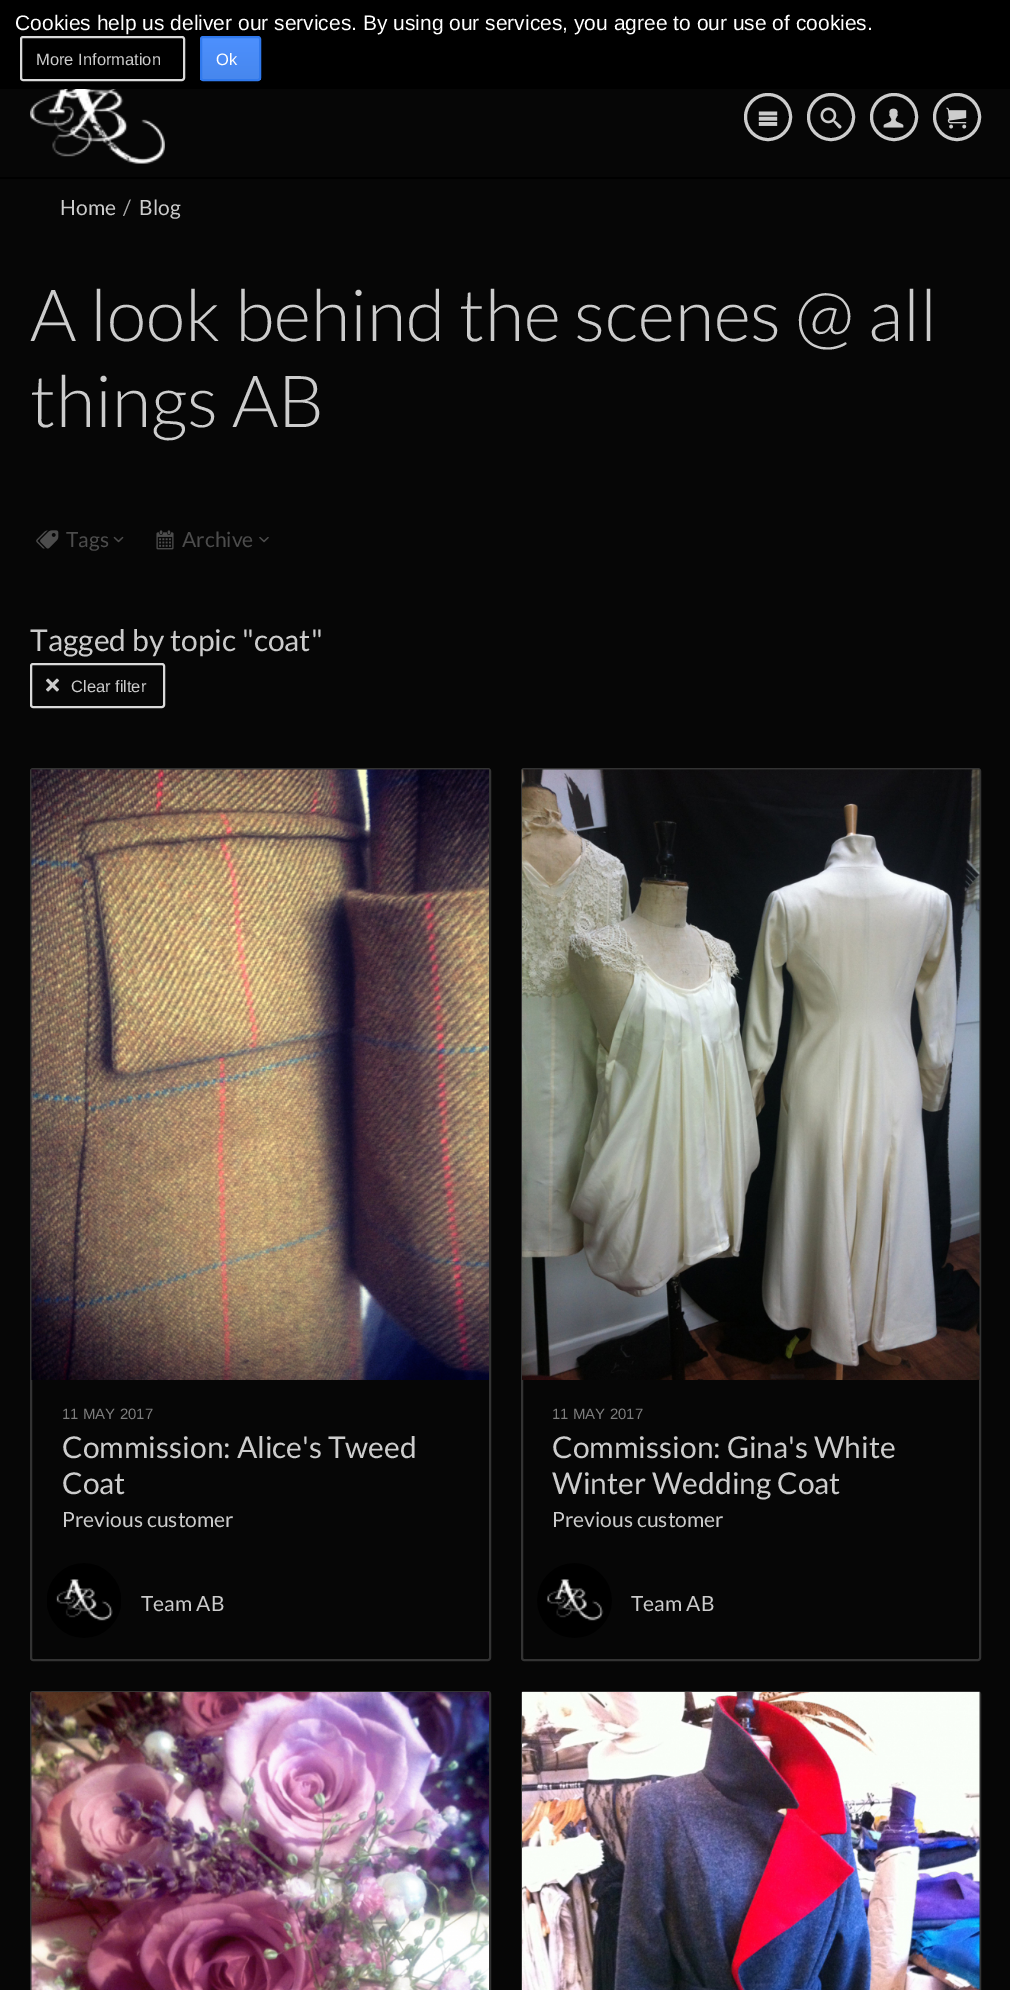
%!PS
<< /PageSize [1010 1990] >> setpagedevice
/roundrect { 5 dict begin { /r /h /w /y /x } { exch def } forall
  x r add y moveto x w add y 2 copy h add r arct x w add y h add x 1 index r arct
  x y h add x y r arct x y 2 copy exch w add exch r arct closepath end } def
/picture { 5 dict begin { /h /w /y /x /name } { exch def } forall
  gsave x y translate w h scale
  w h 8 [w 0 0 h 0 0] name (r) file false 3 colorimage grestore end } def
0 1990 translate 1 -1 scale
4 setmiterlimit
0.024 setgray
0 0 1010 1990 rectfill
0 setgray
0 0 1010 89 rectfill
/LiberationSans-Regular [21 0 0 -21 0 0] selectfont
1 setgray
15 30 moveto (Cookies help us deliver our services. By using our services, you agree to our use of cookies.) show
0.851 setgray
2 setlinewidth
21 37 163 43 2 roundrect stroke
/LiberationSans-Regular [16.5 0 0 -16.5 0 0] selectfont
0.8 setgray
36 65 moveto (More Information) show
gsave
200 36 61 45 3 roundrect clip newpath
gsave newpath 200 38 moveto 261 38 lineto 261 80 lineto 200 80 lineto closepath clip newpath
<< /ShadingType 2 /ColorSpace /DeviceRGB /Coords [230 38 230 80] /Extend [true true] /Function << /FunctionType 2 /Domain [0 1] /C0 [0.302 0.565 0.996] /C1 [0.278 0.529 0.929] /N 1 >> >> shfill grestore
grestore
0.188 0.475 0.929 setrgbcolor
201 37 59 43 2 roundrect stroke
1 setgray
216 65 moveto (Ok) show
0 setgray
0 177 1010 2 rectfill
(img1.rgb) 30 89 135 75 picture
0.8 setgray
3 setlinewidth
newpath 768 117 22.5 0 360 arc closepath stroke
(img2.rgb) 758 111 20 15 picture
newpath 831 117 22.5 0 360 arc closepath stroke
(img3.rgb) 820 107 22 22 picture
newpath 894 117 22.5 0 360 arc closepath stroke
(img4.rgb) 883 108 21 20 picture
newpath 957 117 22.5 0 360 arc closepath stroke
(img5.rgb) 946 107 21 22 picture
/Lato-Regular [21 0 0 -21 0 0] selectfont
60 215 moveto (Home) show
0.667 setgray
123 215 moveto (/) show
0.8 setgray
139 215 moveto (Blog) show
/Lato-Light [72 0 0 -72 0 0] selectfont
30 341 moveto (A look behind the scenes @ all) show
30 427 moveto (things AB) show
(img6.rgb) 36 530 23 19 picture
/Lato-Regular [21 0 0 -21 0 0] selectfont
0.298 setgray
66 547 moveto (Tags) show
(img7.rgb) 113 536 11 7 picture
(img8.rgb) 156 530 18 20 picture
182 547 moveto (Archive) show
(img9.rgb) 259 537 10 6 picture
/Lato-Regular [30 0 0 -30 0 0] selectfont
0.8 setgray
30 651 moveto (Tagged by topic "coat") show
0.851 setgray
2 setlinewidth
31 664 133 43 2 roundrect stroke
(img10.rgb) 46 678 13 14 picture
/LiberationSans-Regular [16.5 0 0 -16.5 0 0] selectfont
0.8 setgray
71 692 moveto (Clear filter) show
0.2 setgray
31 769 459 891 2 roundrect stroke
(img11.rgb) 31 769 458 611 picture
/LiberationSans-Regular [15 0 0 -15 0 0] selectfont
0.49 setgray
62 1419 moveto (11 MAY 2017) show
/Lato-Regular [30 0 0 -30 0 0] selectfont
0.8 setgray
62 1458 moveto (Commission: Alice's Tweed) show
62 1494 moveto (Coat) show
/Lato-Regular [21 0 0 -21 0 0] selectfont
62 1527 moveto (Previous customer) show
(img12.rgb) 47 1563 74 75 picture
141 1611 moveto (Team AB) show
0.2 setgray
522 769 458 891 2 roundrect stroke
(img13.rgb) 522 769 458 611 picture
/LiberationSans-Regular [15 0 0 -15 0 0] selectfont
0.49 setgray
552 1419 moveto (11 MAY 2017) show
/Lato-Regular [30 0 0 -30 0 0] selectfont
0.8 setgray
552 1458 moveto (Commission: Gina's White) show
552 1494 moveto (Winter Wedding Coat) show
/Lato-Regular [21 0 0 -21 0 0] selectfont
552 1527 moveto (Previous customer) show
(img14.rgb) 537 1563 75 75 picture
631 1611 moveto (Team AB) show
0.2 setgray
31 1692 459 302 2 roundrect stroke
(img15.rgb) 31 1692 458 298 picture
522 1692 458 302 2 roundrect stroke
(img16.rgb) 522 1692 458 298 picture
showpage
